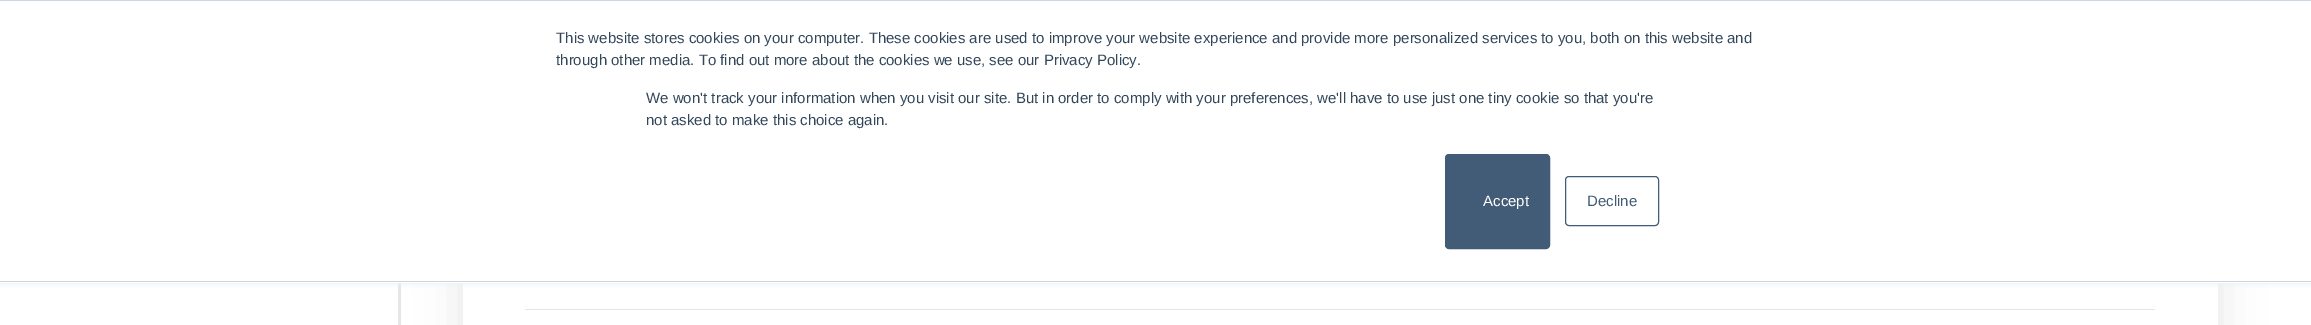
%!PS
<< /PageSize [2311 325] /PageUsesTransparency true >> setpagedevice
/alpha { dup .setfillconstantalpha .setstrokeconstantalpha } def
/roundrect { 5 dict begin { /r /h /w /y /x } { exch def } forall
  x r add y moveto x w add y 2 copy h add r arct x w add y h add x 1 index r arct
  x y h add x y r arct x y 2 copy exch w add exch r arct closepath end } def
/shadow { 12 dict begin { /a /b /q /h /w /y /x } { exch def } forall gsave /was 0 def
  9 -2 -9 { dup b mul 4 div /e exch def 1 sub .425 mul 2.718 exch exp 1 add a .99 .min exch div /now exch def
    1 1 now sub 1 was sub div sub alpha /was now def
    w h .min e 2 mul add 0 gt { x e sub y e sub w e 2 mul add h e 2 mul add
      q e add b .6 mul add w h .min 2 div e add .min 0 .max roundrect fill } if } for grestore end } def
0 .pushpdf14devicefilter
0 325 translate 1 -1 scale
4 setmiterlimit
1 setgray
0 0 2311 325 rectfill
gsave
newpath 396 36 moveto 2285 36 lineto 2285 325 lineto 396 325 lineto closepath 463 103 moveto 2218 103 lineto 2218 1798 lineto 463 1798 lineto closepath eoclip newpath
0 setgray
463 103 1755 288 0 22 0.1 shadow
grestore
0.902 setgray
398 283 3 42 rectfill
0.918 0.941 0.965 setrgbcolor
0 1 2311 283 0 3 1 shadow
1 setgray
0 1 2311 282 rectfill
0.796 0.839 0.886 setrgbcolor
0 0 2311 1 rectfill
0 281 2311 1 rectfill
/LiberationSans-Regular [15 0 0 -15 0 0] selectfont
0.2 0.278 0.357 setrgbcolor
556 43 moveto (This website stores cookies on your computer. These cookies are used to improve your website experience and provide more personalized services to you, both on this website and) show
556 65 moveto (through other media. To find out more about the cookies we use, see our Privacy Policy.) show
646 103 moveto (We won't track your information when you visit our site. But in order to comply with your preferences, we'll have to use just one tiny cookie so that you're) show
646 125 moveto (not asked to make this choice again.) show
0.259 0.357 0.463 setrgbcolor
1445.5 154.5 104 94 3.5 roundrect gsave fill grestore
stroke
1 setgray
1483 206 moveto (Accept) show
0.259 0.357 0.463 setrgbcolor
1565.5 176.5 93 49 3.5 roundrect stroke
1587 206 moveto (Decline) show
0.902 setgray
525 309 1630 1 rectfill
.poppdf14devicefilter showpage
